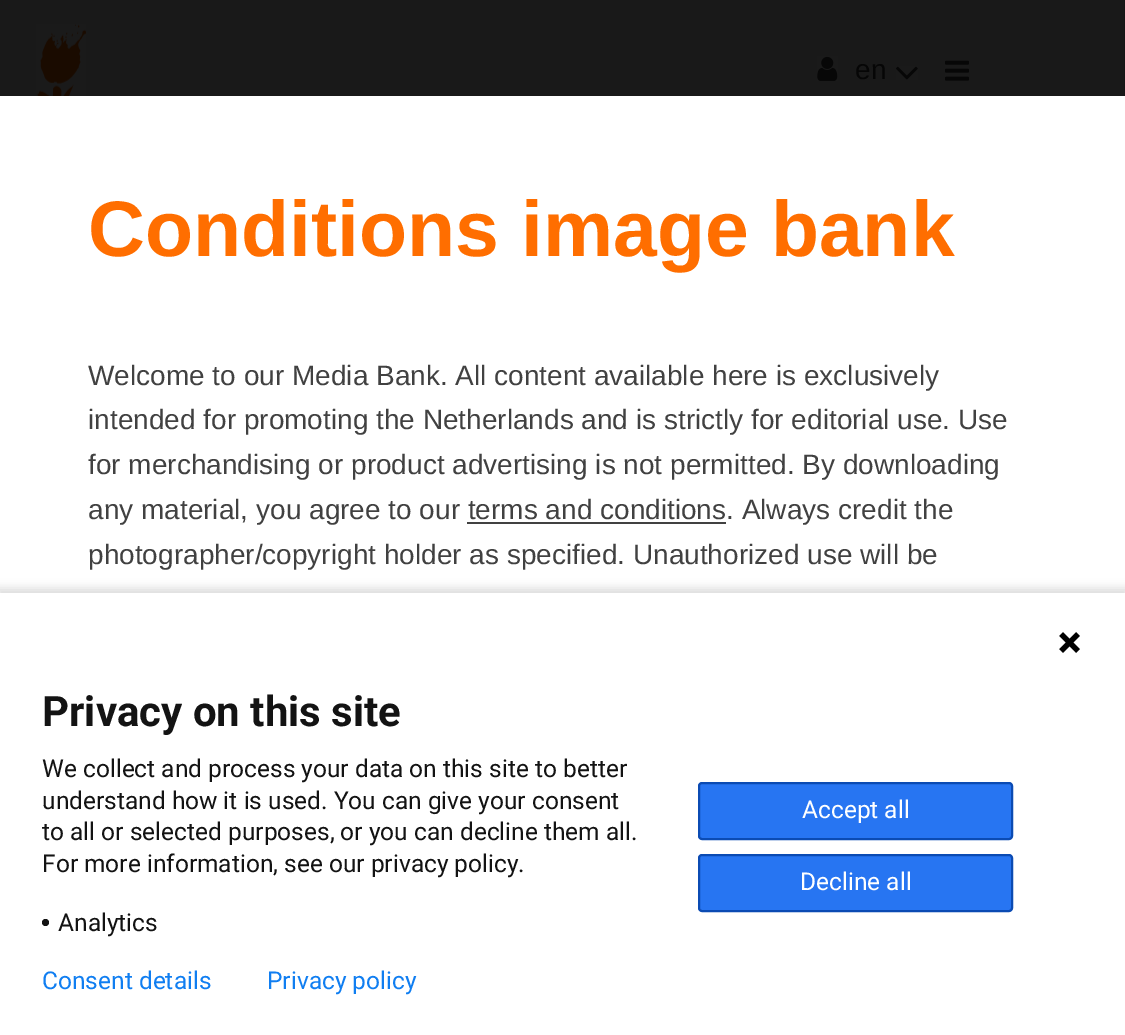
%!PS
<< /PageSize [1125 1035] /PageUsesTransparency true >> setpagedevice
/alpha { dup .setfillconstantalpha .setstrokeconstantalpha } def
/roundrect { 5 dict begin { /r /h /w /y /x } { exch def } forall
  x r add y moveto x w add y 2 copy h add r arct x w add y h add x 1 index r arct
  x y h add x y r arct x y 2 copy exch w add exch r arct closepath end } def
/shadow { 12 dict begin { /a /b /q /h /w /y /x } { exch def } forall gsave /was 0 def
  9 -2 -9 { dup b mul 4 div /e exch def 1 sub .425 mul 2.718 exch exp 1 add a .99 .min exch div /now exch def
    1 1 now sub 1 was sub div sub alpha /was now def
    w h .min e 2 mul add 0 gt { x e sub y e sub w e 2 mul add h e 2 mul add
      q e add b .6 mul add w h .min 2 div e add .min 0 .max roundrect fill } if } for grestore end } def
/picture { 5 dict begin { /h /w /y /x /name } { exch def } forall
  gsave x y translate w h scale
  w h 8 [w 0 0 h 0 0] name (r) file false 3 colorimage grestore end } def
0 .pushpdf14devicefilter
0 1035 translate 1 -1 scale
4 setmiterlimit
0.098 setgray
0 0 1125 1035 rectfill
(img1.rgb) 36 24 50 72 picture
(img2.rgb) 817 56 21 25 picture
/LiberationSans-Regular [28 0 0 -28 0 0] selectfont
0.024 setgray
855 79 moveto (en) show
(img3.rgb) 896 66 22 14 picture
(img4.rgb) 945 60 24 21 picture
0.086 setgray
1124 0 1 96 rectfill
1 setgray
0 96 1125 497 rectfill
/LiberationSans-Bold [78.75 0 0 -78.75 0 0] selectfont
1 0.431 0 setrgbcolor
88 256 moveto (Conditions image bank) show
/LiberationSans-Regular [28 0 0 -28 0 0] selectfont
0.255 setgray
88 385 moveto (Welcome to our Media Bank. All content available here is exclusively) show
88 429 moveto (intended for promoting the Netherlands and is strictly for editorial use. Use) show
88 474 moveto (for merchandising or product advertising is not permitted. By downloading) show
88 519 moveto (any material, you agree to our terms and conditions. Always credit the) show
467 522 259 2 rectfill
88 564 moveto (photographer/copyright holder as specified. Unauthorized use will be) show
0 setgray
-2 588 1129 446 0 4.5 0.14 shadow
1 setgray
0 593 1125 442 rectfill
(img5.rgb) 1059 632 21 21 picture
/Roboto-Bold [42 0 0 -42 0 0] selectfont
0.075 setgray
42 726 moveto (Privacy on this site) show
/Roboto-Regular [24.5 0 0 -24.5 0 0] selectfont
42 777 moveto (We collect and process your data on this site to better) show
42 809 moveto (understand how it is used. You can give your consent) show
42 840 moveto (to all or selected purposes, or you can decline them all.) show
42 872 moveto (For more information, see our privacy policy.) show
newpath 45.5 922.5 3.5 0 360 arc closepath fill
58 931 moveto (Analytics) show
0.153 0.459 0.949 setrgbcolor
699 783 313 56 3 roundrect gsave fill grestore
0.043 0.294 0.702 setrgbcolor
2 setlinewidth
stroke
1 setgray
802 818 moveto (Accept all) show
0.153 0.459 0.949 setrgbcolor
699 855 313 56 3 roundrect gsave fill grestore
0.043 0.294 0.702 setrgbcolor
stroke
1 setgray
800 890 moveto (Decline all) show
0.063 0.494 0.945 setrgbcolor
42 989 moveto (Consent details) show
267 989 moveto (Privacy policy) show
.poppdf14devicefilter showpage
